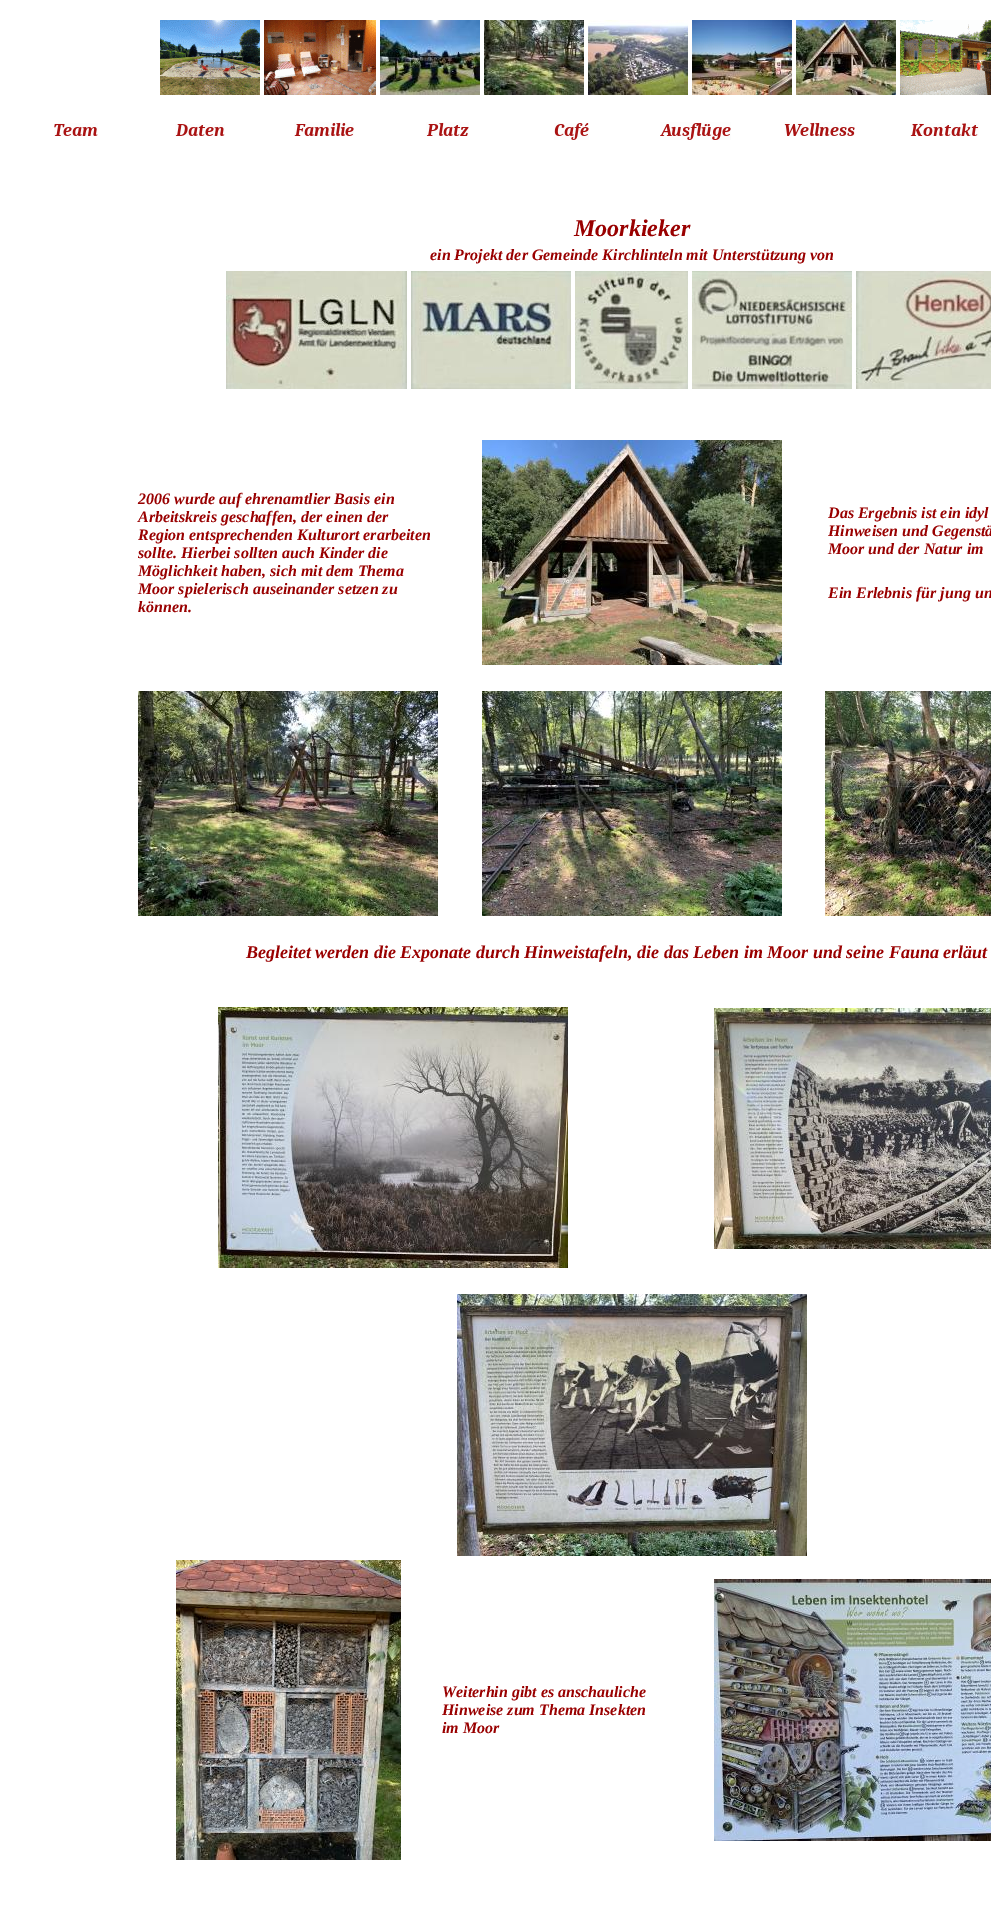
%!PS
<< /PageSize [991 1918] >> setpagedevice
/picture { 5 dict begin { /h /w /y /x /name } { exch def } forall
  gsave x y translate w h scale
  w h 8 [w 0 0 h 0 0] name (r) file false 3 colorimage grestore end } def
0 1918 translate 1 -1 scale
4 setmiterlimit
1 setgray
0 0 991 1918 rectfill
(img1.rgb) 160 20 100 75 picture
(img2.rgb) 264 20 112 75 picture
(img3.rgb) 380 20 100 75 picture
(img4.rgb) 484 20 100 75 picture
(img5.rgb) 588 20 100 75 picture
(img6.rgb) 692 20 100 75 picture
(img7.rgb) 796 20 100 75 picture
(img8.rgb) 900 20 91 75 picture
(img9.rgb) 54 123 44 13 picture
(img10.rgb) 175 124 50 12 picture
(img11.rgb) 294 122 60 14 picture
(img12.rgb) 426 122 43 14 picture
(img13.rgb) 554 123 35 17 picture
(img14.rgb) 660 122 71 18 picture
(img15.rgb) 784 122 71 14 picture
(img16.rgb) 910 123 69 13 picture
/LiberationSerif-BoldItalic [24 0 0 -24 0 0] selectfont
0.6 0 0 setrgbcolor
574 236 moveto (Moorkieker) show
/LiberationSerif-BoldItalic [16 0 0 -16 0 0] selectfont
430 260 moveto (ein Projekt der Gemeinde Kirchlinteln mit Unterstützung von) show
(img17.rgb) 226 271 181 118 picture
(img18.rgb) 411 271 160 118 picture
(img19.rgb) 575 271 113 118 picture
(img20.rgb) 692 271 160 118 picture
(img21.rgb) 856 271 135 118 picture
138 504 moveto (2006 wurde auf ehrenamtlier Basis ein) show
138 522 moveto (Arbeitskreis geschaffen, der einen der) show
138 540 moveto (Region entsprechenden Kulturort erarbeiten) show
138 558 moveto (sollte. Hierbei sollten auch Kinder die) show
138 576 moveto (Möglichkeit haben, sich mit dem Thema) show
138 594 moveto (Moor spielerisch auseinander setzen zu) show
138 612 moveto (können.) show
(img22.rgb) 482 440 300 225 picture
828 518 moveto (Das Ergebnis ist ein idyl) show
828 536 moveto (Hinweisen und Gegenstä) show
828 554 moveto (Moor und der Natur im) show
828 598 moveto (Ein Erlebnis für jung un) show
(img23.rgb) 138 691 300 225 picture
(img24.rgb) 482 691 300 225 picture
(img25.rgb) 825 691 166 225 picture
/LiberationSerif-BoldItalic [18 0 0 -18 0 0] selectfont
246 958 moveto (Begleitet werden die Exponate durch Hinweistafeln, die das Leben im Moor und seine Fauna erläut) show
(img26.rgb) 218 1007 350 261 picture
(img27.rgb) 714 1008 277 241 picture
(img28.rgb) 457 1294 350 262 picture
(img29.rgb) 176 1560 225 300 picture
/LiberationSerif-BoldItalic [16 0 0 -16 0 0] selectfont
442 1697 moveto (Weiterhin gibt es anschauliche) show
442 1715 moveto (Hinweise zum Thema Insekten) show
442 1733 moveto (im Moor) show
(img30.rgb) 714 1579 277 262 picture
showpage
